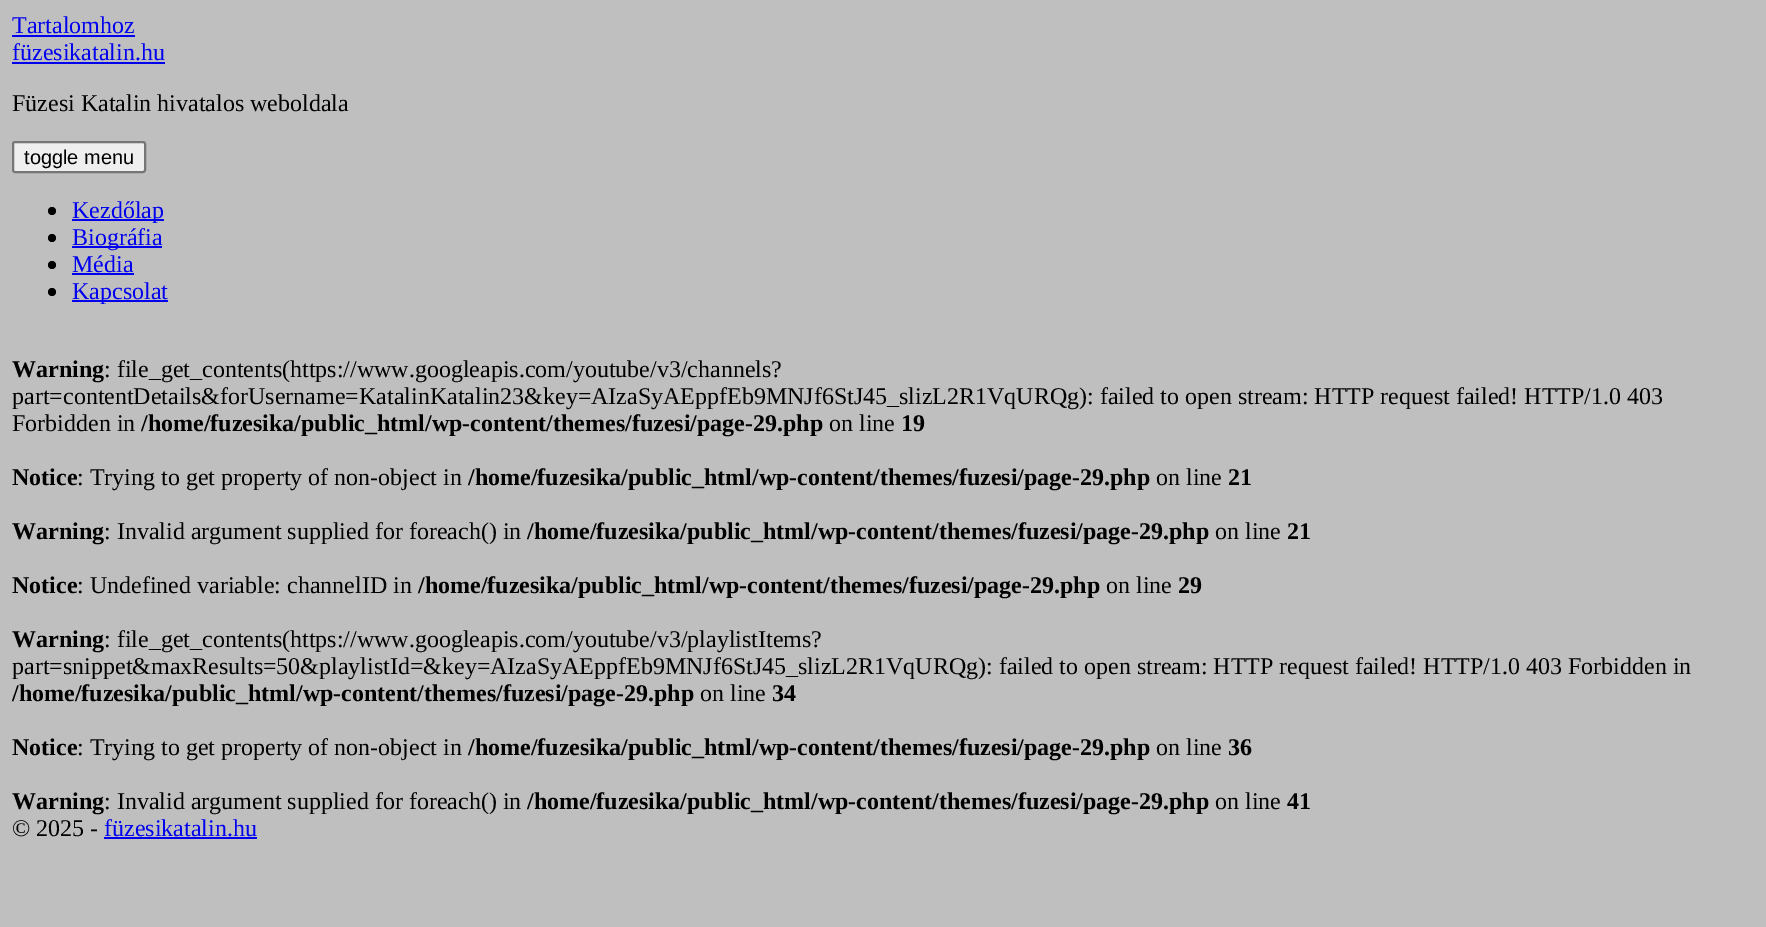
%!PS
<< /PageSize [1766 927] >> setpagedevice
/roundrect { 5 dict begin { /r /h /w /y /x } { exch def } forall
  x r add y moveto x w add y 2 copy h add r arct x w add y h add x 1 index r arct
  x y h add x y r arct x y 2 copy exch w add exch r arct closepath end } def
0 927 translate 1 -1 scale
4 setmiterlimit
0.749 setgray
0 0 1766 927 rectfill
/LiberationSerif-Regular [24 0 0 -24 0 0] selectfont
0 0 0.933 setrgbcolor
12 33 moveto (Tartalomhoz) show
12 35 123 2 rectfill
12 60 moveto (füzesikatalin.hu) show
12 62 153 2 rectfill
0 setgray
12 111 moveto (Füzesi Katalin hivatalos weboldala) show
0.937 setgray
13 142 132 30 2 roundrect gsave fill grestore
0.463 setgray
2 setlinewidth
stroke
/LiberationSans-Regular [20 0 0 -20 0 0] selectfont
0 setgray
24 164 moveto (toggle menu) show
newpath 52 211 4 0 360 arc closepath fill
0 0 0.933 setrgbcolor
72 219 92 2 rectfill
/LiberationSerif-Regular [24 0 0 -24 0 0] selectfont
72 218 moveto (Kezdőlap) show
0 setgray
newpath 52 238 4 0 360 arc closepath fill
0 0 0.933 setrgbcolor
72 246 90 2 rectfill
72 245 moveto (Biográfia) show
0 setgray
newpath 52 265 4 0 360 arc closepath fill
0 0 0.933 setrgbcolor
72 272 moveto (Média) show
72 273 62 2 rectfill
0 setgray
newpath 52 292 4 0 360 arc closepath fill
0 0 0.933 setrgbcolor
72 300 96 2 rectfill
72 299 moveto (Kapcsolat) show
/LiberationSerif-Bold [24 0 0 -24 0 0] selectfont
0 setgray
12 377 moveto (Warning) show
/LiberationSerif-Regular [24 0 0 -24 0 0] selectfont
104 377 moveto (: file_get_contents\(https://www.googleapis.com/youtube/v3/channels?) show
12 404 moveto (part=contentDetails&forUsername=KatalinKatalin23&key=AIzaSyAEppfEb9MNJf6StJ45_slizL2R1VqURQg\): failed to open stream: HTTP request failed! HTTP/1.0 403) show
12 431 moveto (Forbidden in) show
/LiberationSerif-Bold [24 0 0 -24 0 0] selectfont
141 431 moveto (/home/fuzesika/public_html/wp-content/themes/fuzesi/page-29.php) show
/LiberationSerif-Regular [24 0 0 -24 0 0] selectfont
829 431 moveto (on line) show
/LiberationSerif-Bold [24 0 0 -24 0 0] selectfont
901 431 moveto (19) show
12 485 moveto (Notice) show
/LiberationSerif-Regular [24 0 0 -24 0 0] selectfont
77 485 moveto (: Trying to get property of non-object in) show
/LiberationSerif-Bold [24 0 0 -24 0 0] selectfont
468 485 moveto (/home/fuzesika/public_html/wp-content/themes/fuzesi/page-29.php) show
/LiberationSerif-Regular [24 0 0 -24 0 0] selectfont
1156 485 moveto (on line) show
/LiberationSerif-Bold [24 0 0 -24 0 0] selectfont
1228 485 moveto (21) show
12 539 moveto (Warning) show
/LiberationSerif-Regular [24 0 0 -24 0 0] selectfont
104 539 moveto (: Invalid argument supplied for foreach\(\) in) show
/LiberationSerif-Bold [24 0 0 -24 0 0] selectfont
527 539 moveto (/home/fuzesika/public_html/wp-content/themes/fuzesi/page-29.php) show
/LiberationSerif-Regular [24 0 0 -24 0 0] selectfont
1215 539 moveto (on line) show
/LiberationSerif-Bold [24 0 0 -24 0 0] selectfont
1287 539 moveto (21) show
12 593 moveto (Notice) show
/LiberationSerif-Regular [24 0 0 -24 0 0] selectfont
77 593 moveto (: Undefined variable: channelID in) show
/LiberationSerif-Bold [24 0 0 -24 0 0] selectfont
418 593 moveto (/home/fuzesika/public_html/wp-content/themes/fuzesi/page-29.php) show
/LiberationSerif-Regular [24 0 0 -24 0 0] selectfont
1106 593 moveto (on line) show
/LiberationSerif-Bold [24 0 0 -24 0 0] selectfont
1178 593 moveto (29) show
12 647 moveto (Warning) show
/LiberationSerif-Regular [24 0 0 -24 0 0] selectfont
104 647 moveto (: file_get_contents\(https://www.googleapis.com/youtube/v3/playlistItems?) show
12 674 moveto (part=snippet&maxResults=50&playlistId=&key=AIzaSyAEppfEb9MNJf6StJ45_slizL2R1VqURQg\): failed to open stream: HTTP request failed! HTTP/1.0 403 Forbidden in) show
/LiberationSerif-Bold [24 0 0 -24 0 0] selectfont
12 701 moveto (/home/fuzesika/public_html/wp-content/themes/fuzesi/page-29.php) show
/LiberationSerif-Regular [24 0 0 -24 0 0] selectfont
700 701 moveto (on line) show
/LiberationSerif-Bold [24 0 0 -24 0 0] selectfont
772 701 moveto (34) show
12 755 moveto (Notice) show
/LiberationSerif-Regular [24 0 0 -24 0 0] selectfont
77 755 moveto (: Trying to get property of non-object in) show
/LiberationSerif-Bold [24 0 0 -24 0 0] selectfont
468 755 moveto (/home/fuzesika/public_html/wp-content/themes/fuzesi/page-29.php) show
/LiberationSerif-Regular [24 0 0 -24 0 0] selectfont
1156 755 moveto (on line) show
/LiberationSerif-Bold [24 0 0 -24 0 0] selectfont
1228 755 moveto (36) show
12 809 moveto (Warning) show
/LiberationSerif-Regular [24 0 0 -24 0 0] selectfont
104 809 moveto (: Invalid argument supplied for foreach\(\) in) show
/LiberationSerif-Bold [24 0 0 -24 0 0] selectfont
527 809 moveto (/home/fuzesika/public_html/wp-content/themes/fuzesi/page-29.php) show
/LiberationSerif-Regular [24 0 0 -24 0 0] selectfont
1215 809 moveto (on line) show
/LiberationSerif-Bold [24 0 0 -24 0 0] selectfont
1287 809 moveto (41) show
/LiberationSerif-Regular [24 0 0 -24 0 0] selectfont
12 836 moveto (© 2025 -) show
0 0 0.933 setrgbcolor
104 836 moveto (füzesikatalin.hu) show
104 837 153 2 rectfill
showpage
